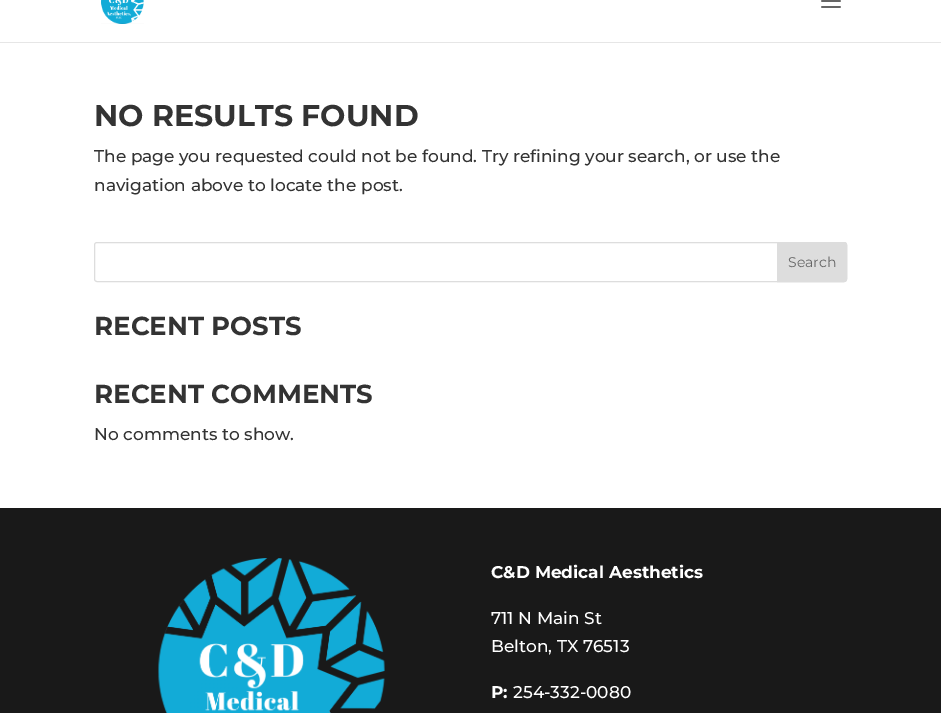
%!PS
<< /PageSize [941 713] >> setpagedevice
/roundrect { 5 dict begin { /r /h /w /y /x } { exch def } forall
  x r add y moveto x w add y 2 copy h add r arct x w add y h add x 1 index r arct
  x y h add x y r arct x y 2 copy exch w add exch r arct closepath end } def
/picture { 5 dict begin { /h /w /y /x /name } { exch def } forall
  gsave x y translate w h scale
  w h 8 [w 0 0 h 0 0] name (r) file false 3 colorimage grestore end } def
0 713 translate 1 -1 scale
4 setmiterlimit
1 setgray
0 0 941 713 rectfill
0.902 setgray
0 42 941 1 rectfill
(img1.rgb) 101 0 43 24 picture
(img2.rgb) 821 0 20 8 picture
/Montserrat-Bold [30 0 0 -30 0 0] selectfont
0.2 setgray
94 126 moveto (NO RESULTS FOUND) show
/Montserrat-Medium [17 0 0 -17 0 0] selectfont
94 162 moveto (The page you requested could not be found. Try refining your search, or use the) show
94 191 moveto (navigation above to locate the post.) show
0.867 setgray
94.5 242.5 752 39 2.5 roundrect stroke
newpath 777.5 242.5 moveto 844 242.5 lineto 845.5 242.5 846.5 243.5 846.5 245 curveto 846.5 279 lineto 846.5 280.5 845.5 281.5 844 281.5 curveto 777.5 281.5 lineto closepath gsave fill grestore
stroke
/Montserrat-Regular [14 0 0 -14 0 0] selectfont
0.4 setgray
788 267 moveto (Search) show
/Montserrat-Bold [26 0 0 -26 0 0] selectfont
0.2 setgray
94 335 moveto (RECENT POSTS) show
94 403 moveto (RECENT COMMENTS) show
/Montserrat-Medium [17 0 0 -17 0 0] selectfont
94 440 moveto (No comments to show.) show
0.098 setgray
0 508 941 205 rectfill
(img3.rgb) 158 558 227 155 picture
/Montserrat-Bold [17 0 0 -17 0 0] selectfont
1 setgray
491 578 moveto (C&D Medical Aesthetics) show
/Montserrat-Medium [17 0 0 -17 0 0] selectfont
491 624 moveto (711 N Main St) show
491 652 moveto (Belton, TX 76513) show
/Montserrat-Bold [17 0 0 -17 0 0] selectfont
491 698 moveto (P:) show
/Montserrat-Medium [17 0 0 -17 0 0] selectfont
513 698 moveto (254-332-0080) show
showpage
